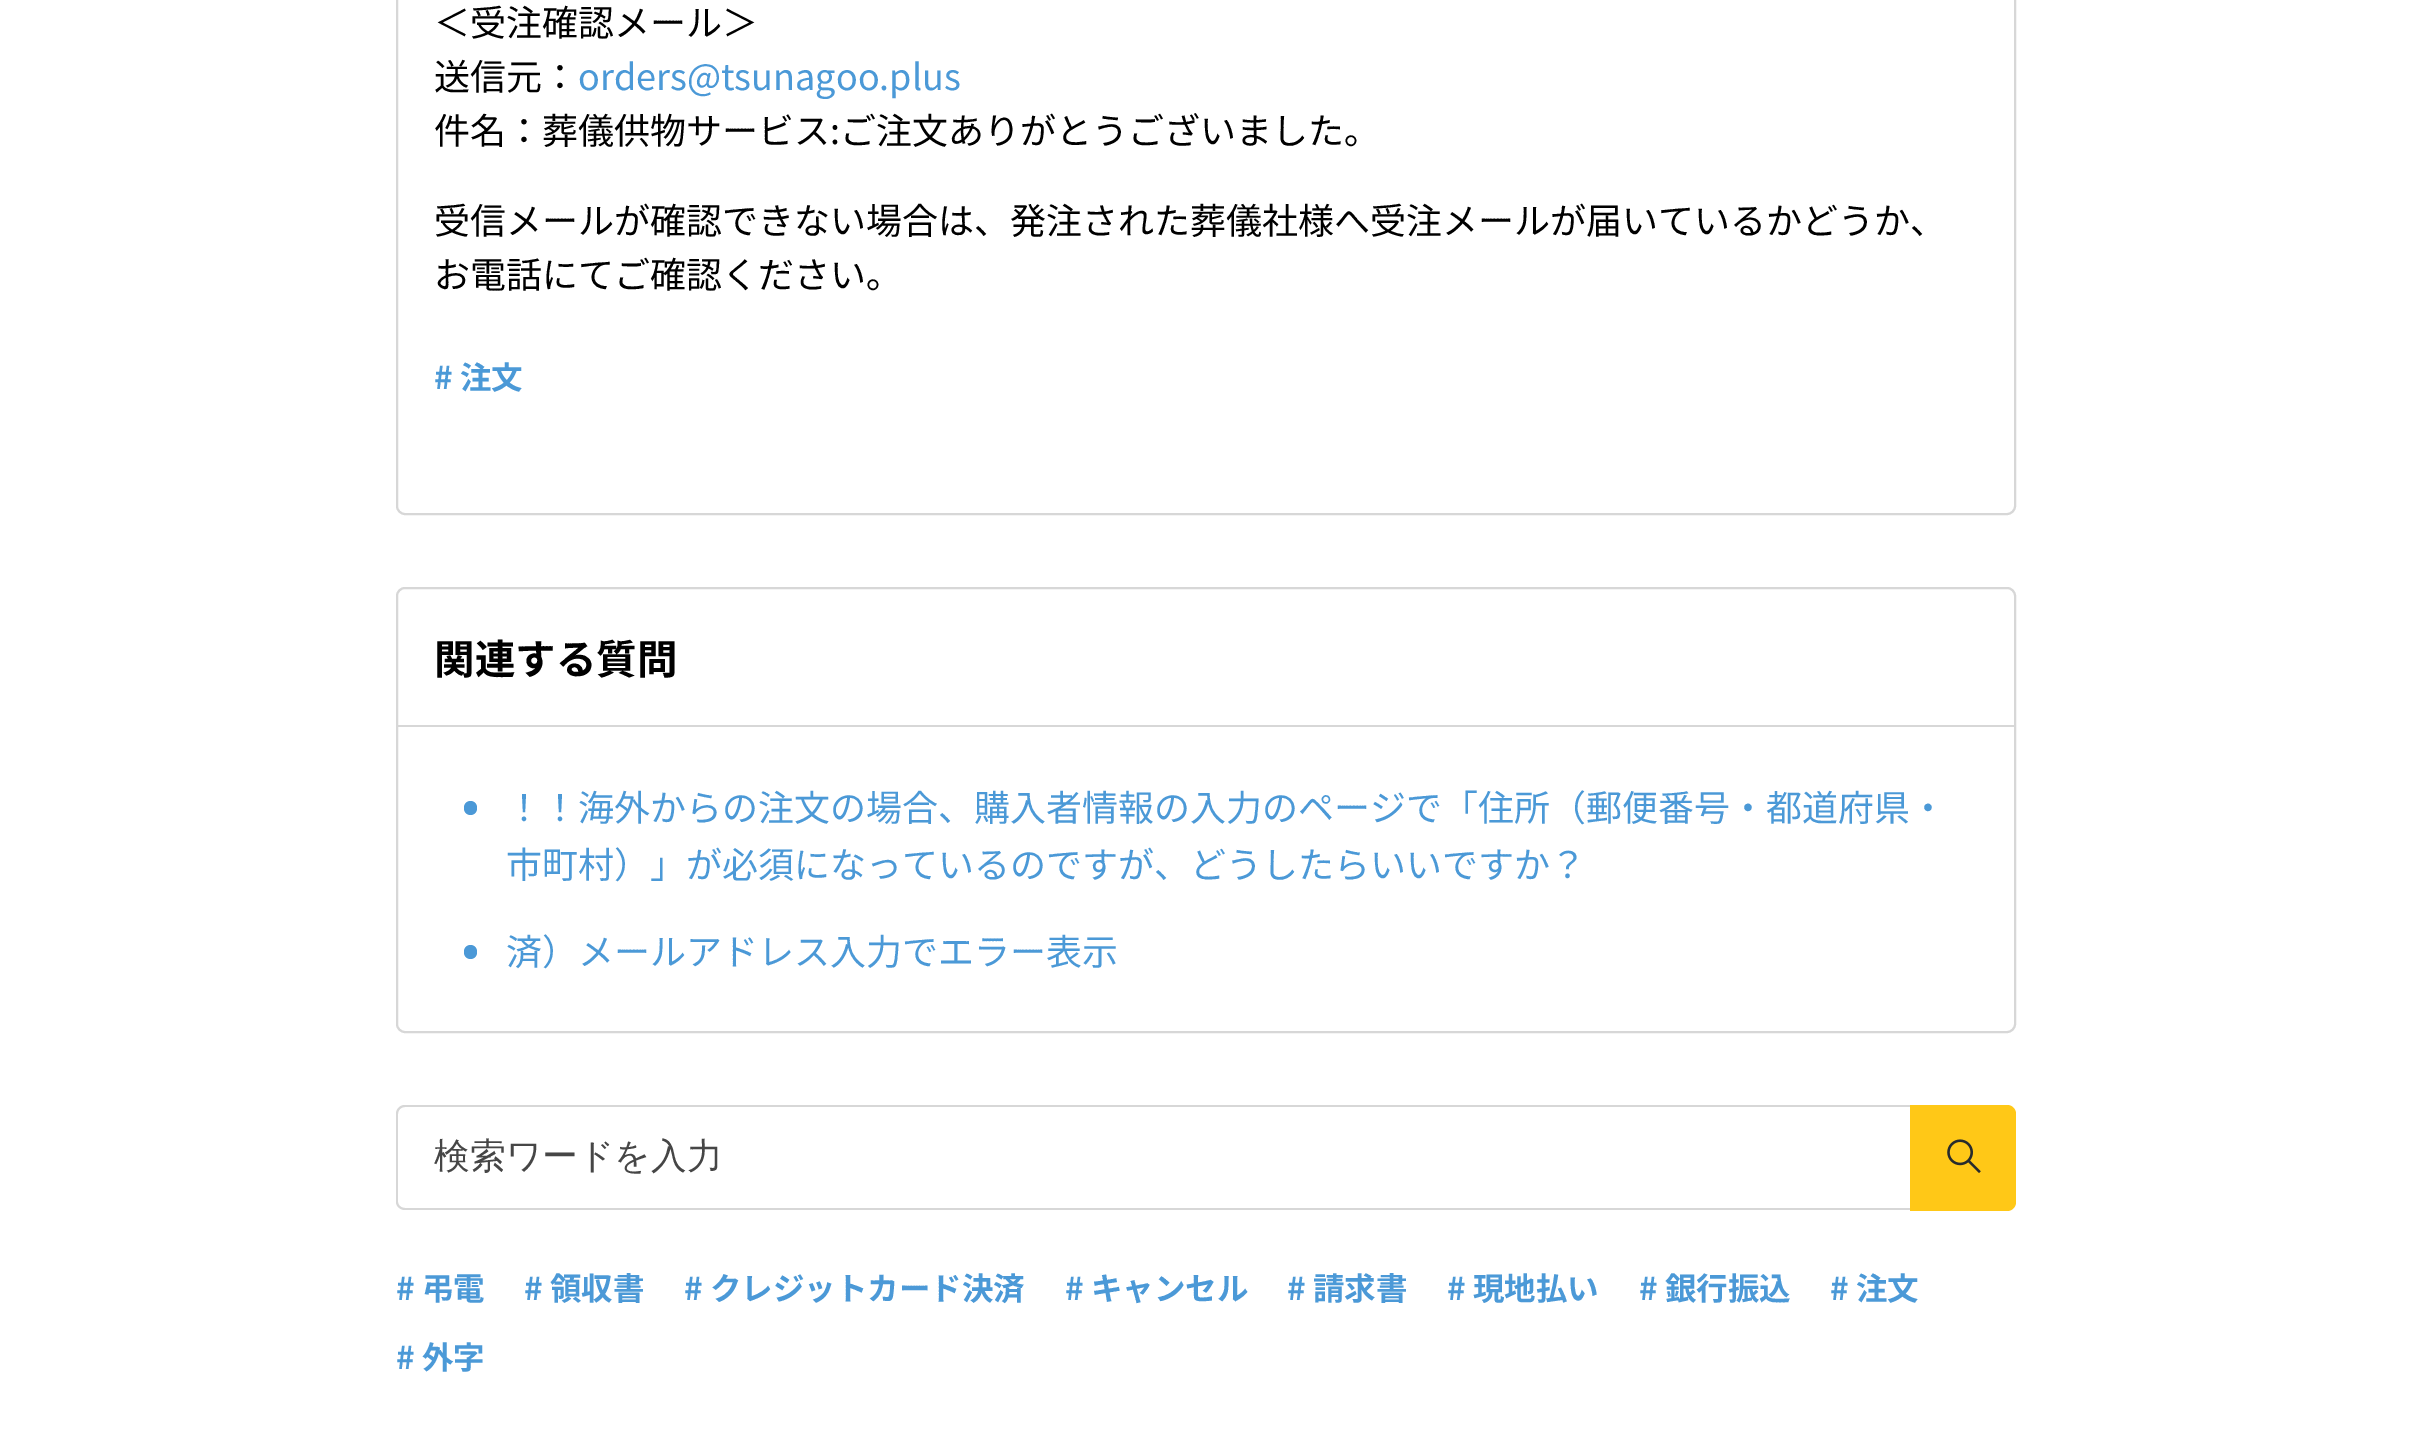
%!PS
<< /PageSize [2412 1439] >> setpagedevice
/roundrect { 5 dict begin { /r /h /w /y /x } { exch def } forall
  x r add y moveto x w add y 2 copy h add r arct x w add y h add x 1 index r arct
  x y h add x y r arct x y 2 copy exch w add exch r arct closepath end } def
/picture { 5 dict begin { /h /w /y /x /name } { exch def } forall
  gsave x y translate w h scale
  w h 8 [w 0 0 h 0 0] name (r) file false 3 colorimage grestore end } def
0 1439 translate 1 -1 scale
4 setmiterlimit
1 setgray
0 0 2412 1439 rectfill
0.843 setgray
2 setlinewidth
397 -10 1618 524 8 roundrect stroke
/NotoSansJP-Regular [36 0 0 -36 0 0] selectfont
0 setgray
434 36 moveto (＜受注確認メール＞) show
434 90 moveto (送信元：) show
0.294 0.6 0.843 setrgbcolor
578 90 moveto (orders@tsunagoo.plus) show
0 setgray
434 144 moveto (件名：葬儀供物サービス:ご注文ありがとうございました。) show
434 234 moveto (受信メールが確認できない場合は、発注された葬儀社様へ受注メールが届いているかどうか、) show
434 288 moveto (お電話にてご確認ください。) show
/NotoSansJP-Bold [31.5 0 0 -31.5 0 0] selectfont
0.294 0.6 0.843 setrgbcolor
434 389 moveto (# 注文) show
0.843 setgray
397 588 1618 444 8 roundrect stroke
398 725 1616 2 rectfill
/NotoSansJP-Bold [40.5 0 0 -40.5 0 0] selectfont
0 setgray
434 674 moveto (関連する質問) show
0.294 0.6 0.843 setrgbcolor
464 801 13 14 6.5 roundrect fill
/NotoSansJP-Regular [36 0 0 -36 0 0] selectfont
506 821 moveto (！！海外からの注文の場合、購入者情報の入力のページで「住所（郵便番号・都道府県・) show
506 878 moveto (市町村）」が必須になっているのですが、どうしたらいいですか？) show
464 945 13 14 6.5 roundrect fill
506 965 moveto (済）メールアドレス入力でエラー表示) show
0.843 setgray
newpath 405 1105 moveto 1910 1105 lineto 1910 1210 lineto 405 1210 lineto 400 1210 396 1206 396 1202 curveto 396 1114 lineto 396 1109 400 1105 405 1105 curveto closepath 405 1107 moveto 1910 1107 lineto 1910 1208 lineto 405 1208 lineto 401 1208 398 1205 398 1202 curveto 398 1114 lineto 398 1110 401 1107 405 1107 curveto closepath eofill
/WenQuanYiZenHei-Medium [35.75 0 0 -35.75 0 0] selectfont
0.275 setgray
434 1168 moveto (検索ワードを入力) show
1 0.784 0.09 setrgbcolor
newpath 1910 1105 moveto 2007 1105 lineto 2012 1105 2016 1109 2016 1114 curveto 2016 1202 lineto 2016 1207 2012 1211 2007 1211 curveto 1910 1211 lineto closepath fill
(img1.rgb) 1947 1139 34 34 picture
/NotoSansJP-Bold [31.5 0 0 -31.5 0 0] selectfont
0.294 0.6 0.843 setrgbcolor
396 1300 moveto (# 弔電) show
524 1300 moveto (# 領収書) show
684 1300 moveto (# クレジットカード決済) show
1065 1300 moveto (# キャンセル) show
1287 1300 moveto (# 請求書) show
1447 1300 moveto (# 現地払い) show
1639 1300 moveto (# 銀行振込) show
1830 1300 moveto (# 注文) show
396 1369 moveto (# 外字) show
showpage
